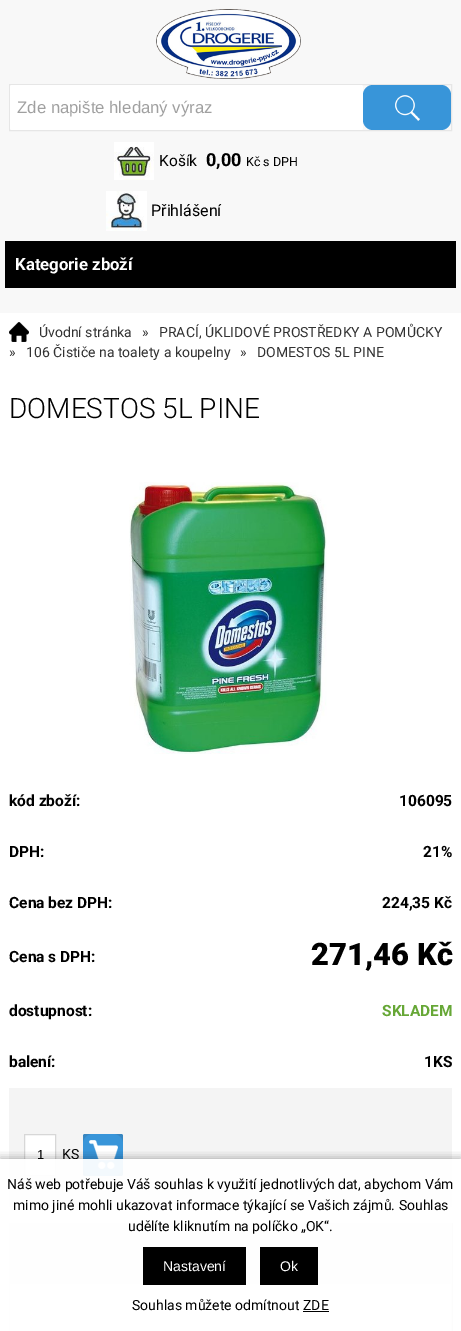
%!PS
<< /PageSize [461 1331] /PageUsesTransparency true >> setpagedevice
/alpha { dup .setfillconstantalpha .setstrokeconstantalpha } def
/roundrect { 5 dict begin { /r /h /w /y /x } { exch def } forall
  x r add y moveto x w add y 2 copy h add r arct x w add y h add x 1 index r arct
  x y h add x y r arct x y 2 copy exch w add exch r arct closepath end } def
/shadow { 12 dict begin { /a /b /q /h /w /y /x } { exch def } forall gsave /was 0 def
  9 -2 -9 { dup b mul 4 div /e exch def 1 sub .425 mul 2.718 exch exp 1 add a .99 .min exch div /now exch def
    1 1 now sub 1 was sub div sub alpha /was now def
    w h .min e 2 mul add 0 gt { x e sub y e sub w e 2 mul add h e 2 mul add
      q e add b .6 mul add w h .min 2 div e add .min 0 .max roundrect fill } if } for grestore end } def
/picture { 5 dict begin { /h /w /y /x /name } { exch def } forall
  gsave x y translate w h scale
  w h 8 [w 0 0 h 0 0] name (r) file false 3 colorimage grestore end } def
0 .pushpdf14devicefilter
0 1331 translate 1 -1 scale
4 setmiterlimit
0.973 setgray
0 0 461 1331 rectfill
(img1.rgb) 156 9 145 70 picture
0.902 setgray
9.5 84.5 442 46 rectstroke
1 setgray
10 85 353 45 2 roundrect fill
/LiberationSans-Regular [16.75 0 0 -16.75 0 0] selectfont
0.627 setgray
17 113 moveto (Zde napište hledaný výraz) show
0.22 0.584 0.851 setrgbcolor
363 85 88 45 10 roundrect fill
(img2.rgb) 395 95 25 26 picture
(img3.rgb) 114 142 40 38 picture
/Roboto-Regular [15.5 0 0 -15.5 0 0] selectfont
0 setgray
159 166 moveto (Košík) show
/Roboto-Bold [18 0 0 -18 0 0] selectfont
206 166 moveto (0,00) show
/Roboto-Regular [12.5 0 0 -12.5 0 0] selectfont
246 166 moveto (Kč s DPH) show
(img4.rgb) 106 191 41 40 picture
/Roboto-Regular [16 0 0 -16 0 0] selectfont
151 216 moveto (Přihlášení) show
5 241 451 47 rectfill
/Roboto-Bold [16.75 0 0 -16.75 0 0] selectfont
1 setgray
15 270 moveto (Kategorie zboží) show
0 313 461 1018 rectfill
(img5.rgb) 9 322 20 20 picture
/Roboto-Regular [14 0 0 -14 0 0] selectfont
0.196 setgray
39 337 moveto (Úvodní stránka) show
142 337 moveto (») show
159 337 moveto (PRACÍ, ÚKLIDOVÉ PROSTŘEDKY A POMŮCKY) show
9 357 moveto (») show
26 357 moveto (106 Čističe na toalety a koupelny) show
240 357 moveto (») show
257 357 moveto (DOMESTOS 5L PINE) show
/Roboto-Light [28 0 0 -28 0 0] selectfont
0 setgray
9 418 moveto (DOMESTOS 5L PINE) show
(img6.rgb) 129 482 198 272 picture
/Roboto-Bold [15.5 0 0 -15.5 0 0] selectfont
9 806 moveto (kód zboží:) show
399 806 moveto (106095) show
9 857 moveto (DPH:) show
423 857 moveto (21%) show
9 908 moveto (Cena bez DPH:) show
382 908 moveto (224,35 Kč) show
9 962 moveto (Cena s DPH:) show
/Roboto-Black [31 0 0 -31 0 0] selectfont
311 965 moveto (271,46 Kč) show
/Roboto-Bold [15.5 0 0 -15.5 0 0] selectfont
9 1016 moveto (dostupnost:) show
0.4 0.655 0.212 setrgbcolor
382 1016 moveto (SKLADEM) show
0 setgray
9 1067 moveto (balení:) show
424 1067 moveto (1KS) show
0.957 setgray
9 1088 443 119 rectfill
1 setgray
newpath 24.5 1134.5 moveto 55.5 1134.5 lineto 55.5 1175.5 lineto 24.5 1175.5 lineto closepath gsave fill grestore
0.843 setgray
stroke
/LiberationSans-Regular [13 0 0 -13 0 0] selectfont
0 setgray
37 1159 moveto (1) show
/Roboto-Regular [14 0 0 -14 0 0] selectfont
62 1159 moveto (KS) show
0.22 0.525 0.753 setrgbcolor
83 1134 40 42 2 roundrect fill
0.22 0.584 0.851 setrgbcolor
83 1134 40 42 10 roundrect fill
(img7.rgb) 89 1140 29 29 picture
0.957 setgray
9.5 1223.5 442 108 rectstroke
10 1224 441 60 rectfill
gsave
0 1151 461 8 rectclip
0 setgray
0 1157 461 172 0 4 0.25 shadow
grestore
0.94 alpha
1 setgray
9 1159 443 172 rectfill
1 alpha
0 setgray
7 1189 moveto (Náš web potřebuje Váš souhlas k využití jednotlivých dat, abychom Vám) show
13 1210 moveto (mimo jiné mohli ukazovat informace týkající se Vašich zájmů. Souhlas) show
128 1231 moveto (udělíte kliknutím na políčko „OK“.) show
143 1247 103 38 rectfill
/LiberationSans-Regular [14 0 0 -14 0 0] selectfont
1 setgray
163 1271 moveto (Nastavení) show
0 setgray
260 1247 58 38 rectfill
1 setgray
280 1271 moveto (Ok) show
/Roboto-Regular [14 0 0 -14 0 0] selectfont
0 setgray
132 1310 moveto (Souhlas můžete odmítnout ZDE) show
303 1311 26 1 rectfill
.poppdf14devicefilter showpage
